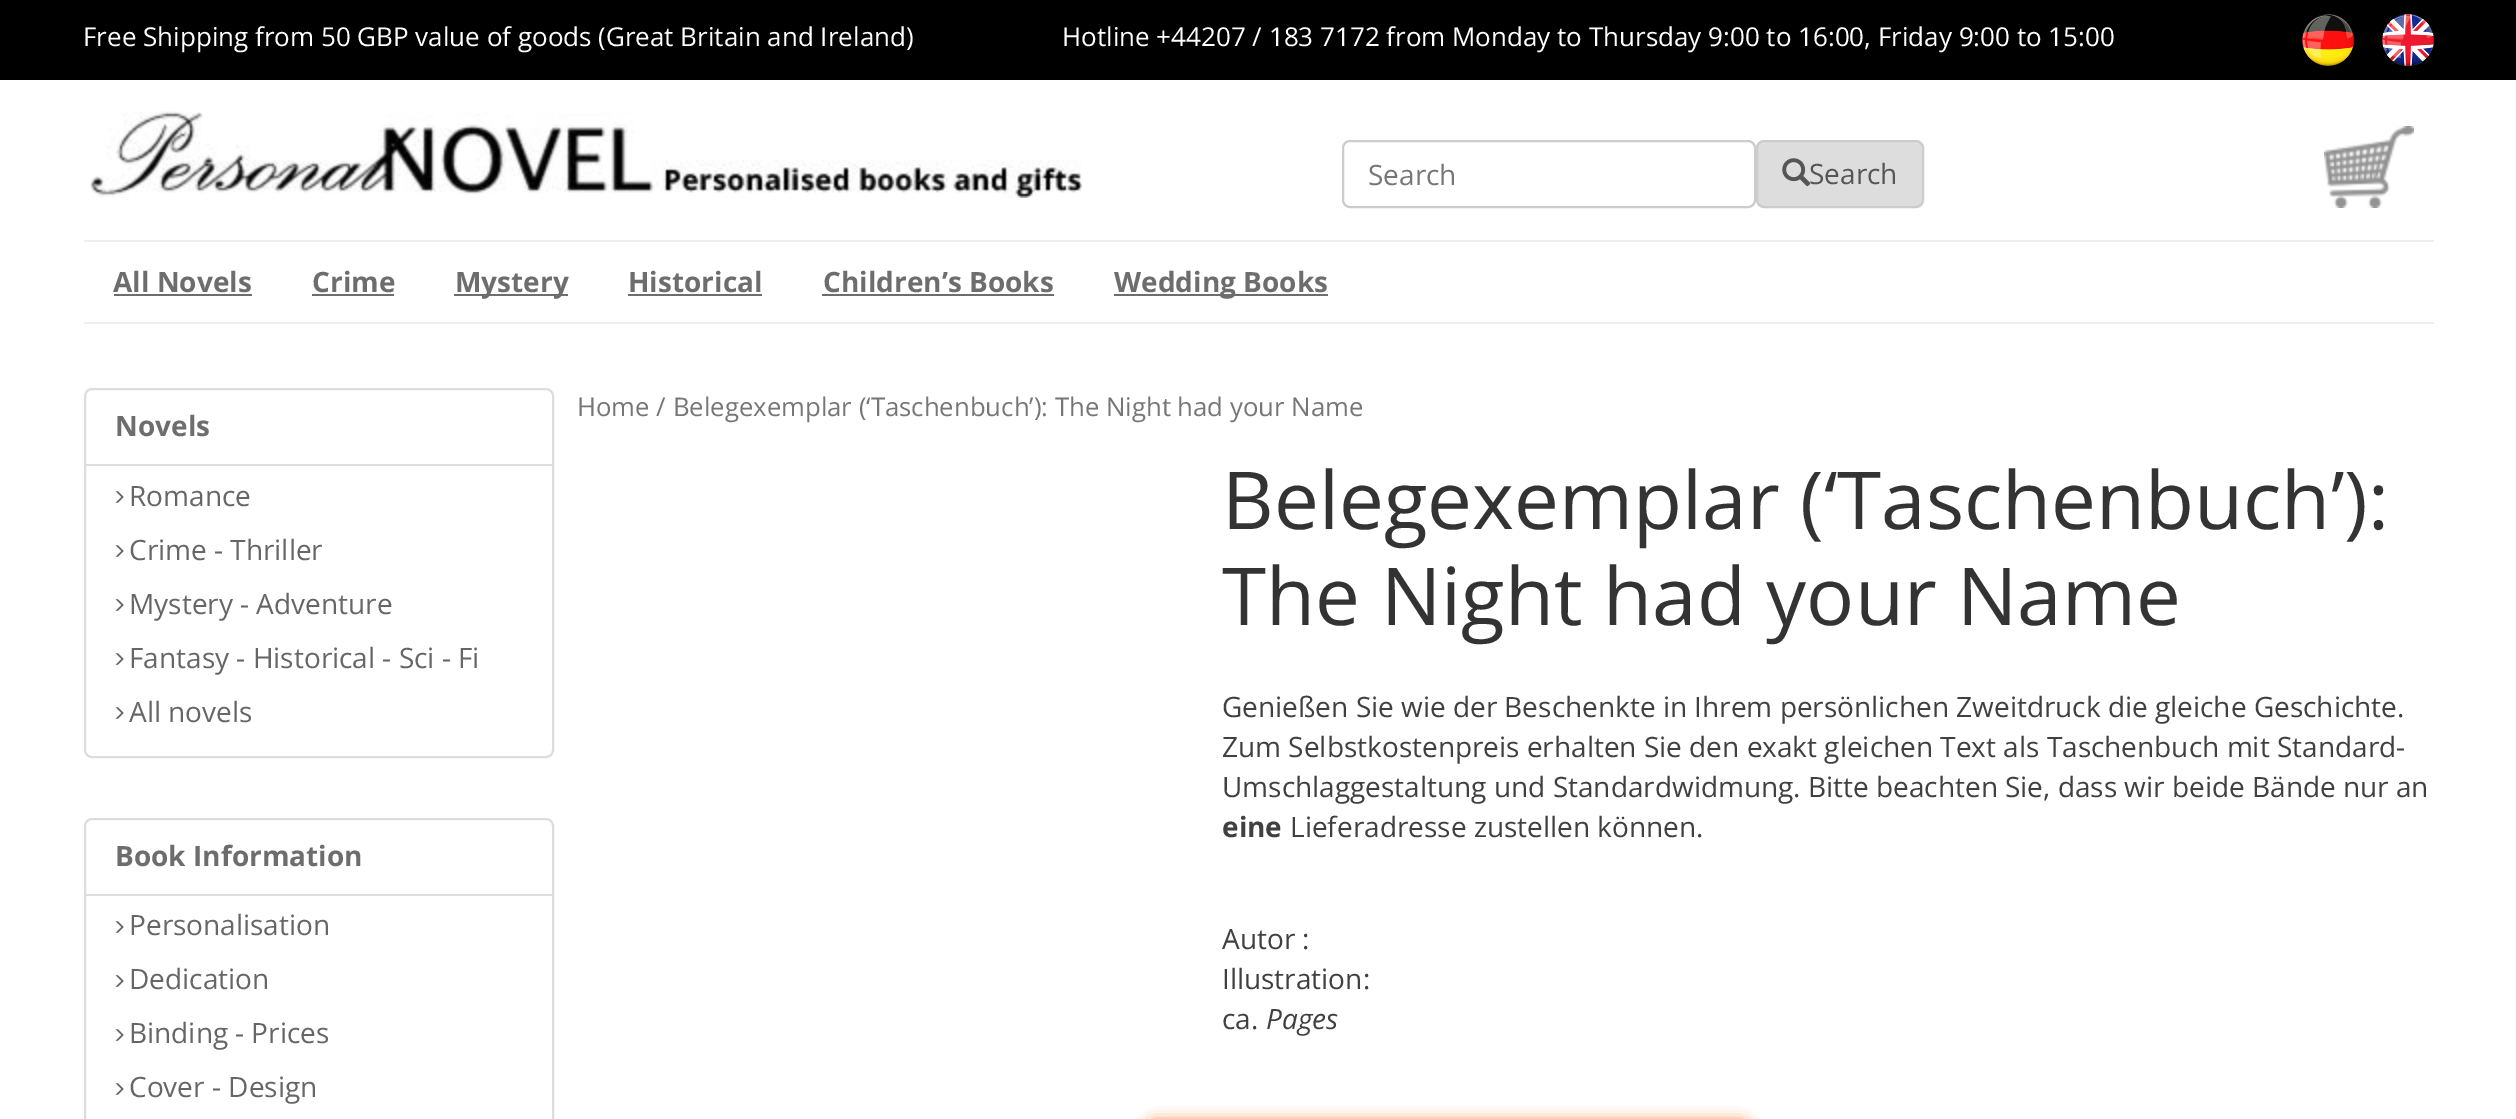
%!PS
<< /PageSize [2516 1119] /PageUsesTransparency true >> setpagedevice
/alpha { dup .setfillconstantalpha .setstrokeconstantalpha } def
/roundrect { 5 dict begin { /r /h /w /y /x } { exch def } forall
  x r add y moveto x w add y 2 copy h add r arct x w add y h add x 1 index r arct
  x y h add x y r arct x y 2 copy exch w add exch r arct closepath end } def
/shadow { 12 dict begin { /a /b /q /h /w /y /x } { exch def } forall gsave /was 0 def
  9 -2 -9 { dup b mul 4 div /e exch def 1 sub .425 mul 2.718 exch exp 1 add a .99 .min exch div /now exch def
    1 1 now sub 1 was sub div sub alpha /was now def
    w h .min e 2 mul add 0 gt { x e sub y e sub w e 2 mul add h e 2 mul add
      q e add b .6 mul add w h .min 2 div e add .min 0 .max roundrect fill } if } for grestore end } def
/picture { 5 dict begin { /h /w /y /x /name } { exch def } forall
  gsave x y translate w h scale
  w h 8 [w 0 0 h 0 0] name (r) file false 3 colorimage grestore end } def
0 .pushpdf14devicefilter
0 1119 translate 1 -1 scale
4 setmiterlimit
1 setgray
0 0 2516 1119 rectfill
0 setgray
0 0 2516 80 rectfill
/OpenSans-Regular [26 0 0 -26 0 0] selectfont
1 setgray
83 46 moveto (Free Shipping from 50 GBP value of goods \(Great Britain and Ireland\)) show
1062 46 moveto (Hotline +44207 / 183 7172 from Monday to Thursday 9:00 to 16:00, Friday 9:00 to 15:00) show
(img1.rgb) 2302 14 52 52 picture
(img2.rgb) 2382 14 52 52 picture
(img3.rgb) 90 111 992 87 picture
0.8 setgray
2 setlinewidth
1343 141 412 66 7 roundrect stroke
/OpenSans-Regular [28 0 0 -28 0 0] selectfont
0.463 setgray
1368 185 moveto (Search) show
0.867 setgray
1757 141 166 66 7 roundrect gsave fill grestore
0.8 setgray
stroke
0.333 setgray
1809 184 moveto (Search) show
(img4.rgb) 1782 158 29 29 picture
(img5.rgb) 2324 126 90 82 picture
0.933 setgray
84 240 2350 2 rectfill
84 322 2350 2 rectfill
/OpenSans-Bold [28 0 0 -28 0 0] selectfont
0.427 setgray
113 292 moveto (All Novels) show
114 294 138 2 rectfill
312 292 moveto (Crime) show
312 294 82 2 rectfill
454 294 114 2 rectfill
455 292 moveto (Mystery) show
628 292 moveto (Historical) show
628 294 134 2 rectfill
823 292 moveto (Children’s Books) show
822 294 232 2 rectfill
1114 294 214 2 rectfill
1114 292 moveto (Wedding Books) show
0.867 setgray
85 389 468 368 7 roundrect stroke
0.427 setgray
115 436 moveto (Novels) show
0.867 setgray
86 464 466 2 rectfill
(img6.rgb) 115 491 9 12 picture
/OpenSans-Regular [28 0 0 -28 0 0] selectfont
0.4 setgray
129 506 moveto (Romance) show
(img6.rgb) 115 545 9 12 picture
129 560 moveto (Crime - Thriller) show
(img6.rgb) 115 599 9 12 picture
129 614 moveto (Mystery - Adventure) show
(img6.rgb) 115 653 9 12 picture
129 668 moveto (Fantasy - Historical - Sci - Fi) show
(img6.rgb) 115 707 9 12 picture
129 722 moveto (All novels) show
0.867 setgray
85 819 468 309 7 roundrect stroke
/OpenSans-Bold [28 0 0 -28 0 0] selectfont
0.427 setgray
115 866 moveto (Book Information) show
0.867 setgray
86 894 466 2 rectfill
(img6.rgb) 115 921 9 12 picture
/OpenSans-Regular [28 0 0 -28 0 0] selectfont
0.4 setgray
129 935 moveto (Personalisation) show
(img6.rgb) 115 975 9 12 picture
129 989 moveto (Dedication) show
(img6.rgb) 115 1029 9 12 picture
129 1043 moveto (Binding - Prices) show
(img6.rgb) 115 1083 9 12 picture
129 1097 moveto (Cover - Design) show
/OpenSans-Regular [25.75 0 0 -25.75 0 0] selectfont
0.463 setgray
577 416 moveto (Home / Belegexemplar \(‘Taschenbuch’\): The Night had your Name) show
/OpenSans-Regular [80 0 0 -80 0 0] selectfont
0.2 setgray
1222 529 moveto (Belegexemplar \(‘Taschenbuch’\):) show
1222 625 moveto (The Night had your Name) show
/OpenSans-Regular [28 0 0 -28 0 0] selectfont
0.251 setgray
1222 717 moveto (Genießen Sie wie der Beschenkte in Ihrem persönlichen Zweitdruck die gleiche Geschichte.) show
1222 757 moveto (Zum Selbstkostenpreis erhalten Sie den exakt gleichen Text als Taschenbuch mit Standard-) show
1222 797 moveto (Umschlaggestaltung und Standardwidmung. Bitte beachten Sie, dass wir beide Bände nur an) show
/OpenSans-Bold [28 0 0 -28 0 0] selectfont
1222 837 moveto (eine) show
/OpenSans-Regular [28 0 0 -28 0 0] selectfont
1290 837 moveto (Lieferadresse zustellen können.) show
1222 949 moveto (Autor :) show
1222 989 moveto (Illustration:) show
1222 1029 moveto (ca.) show
/OpenSans-Italic [28 0 0 -28 0 0] selectfont
1266 1029 moveto (Pages) show
1 0.392 0 setrgbcolor
1146 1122 604 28 10 7 1 shadow
.poppdf14devicefilter showpage
